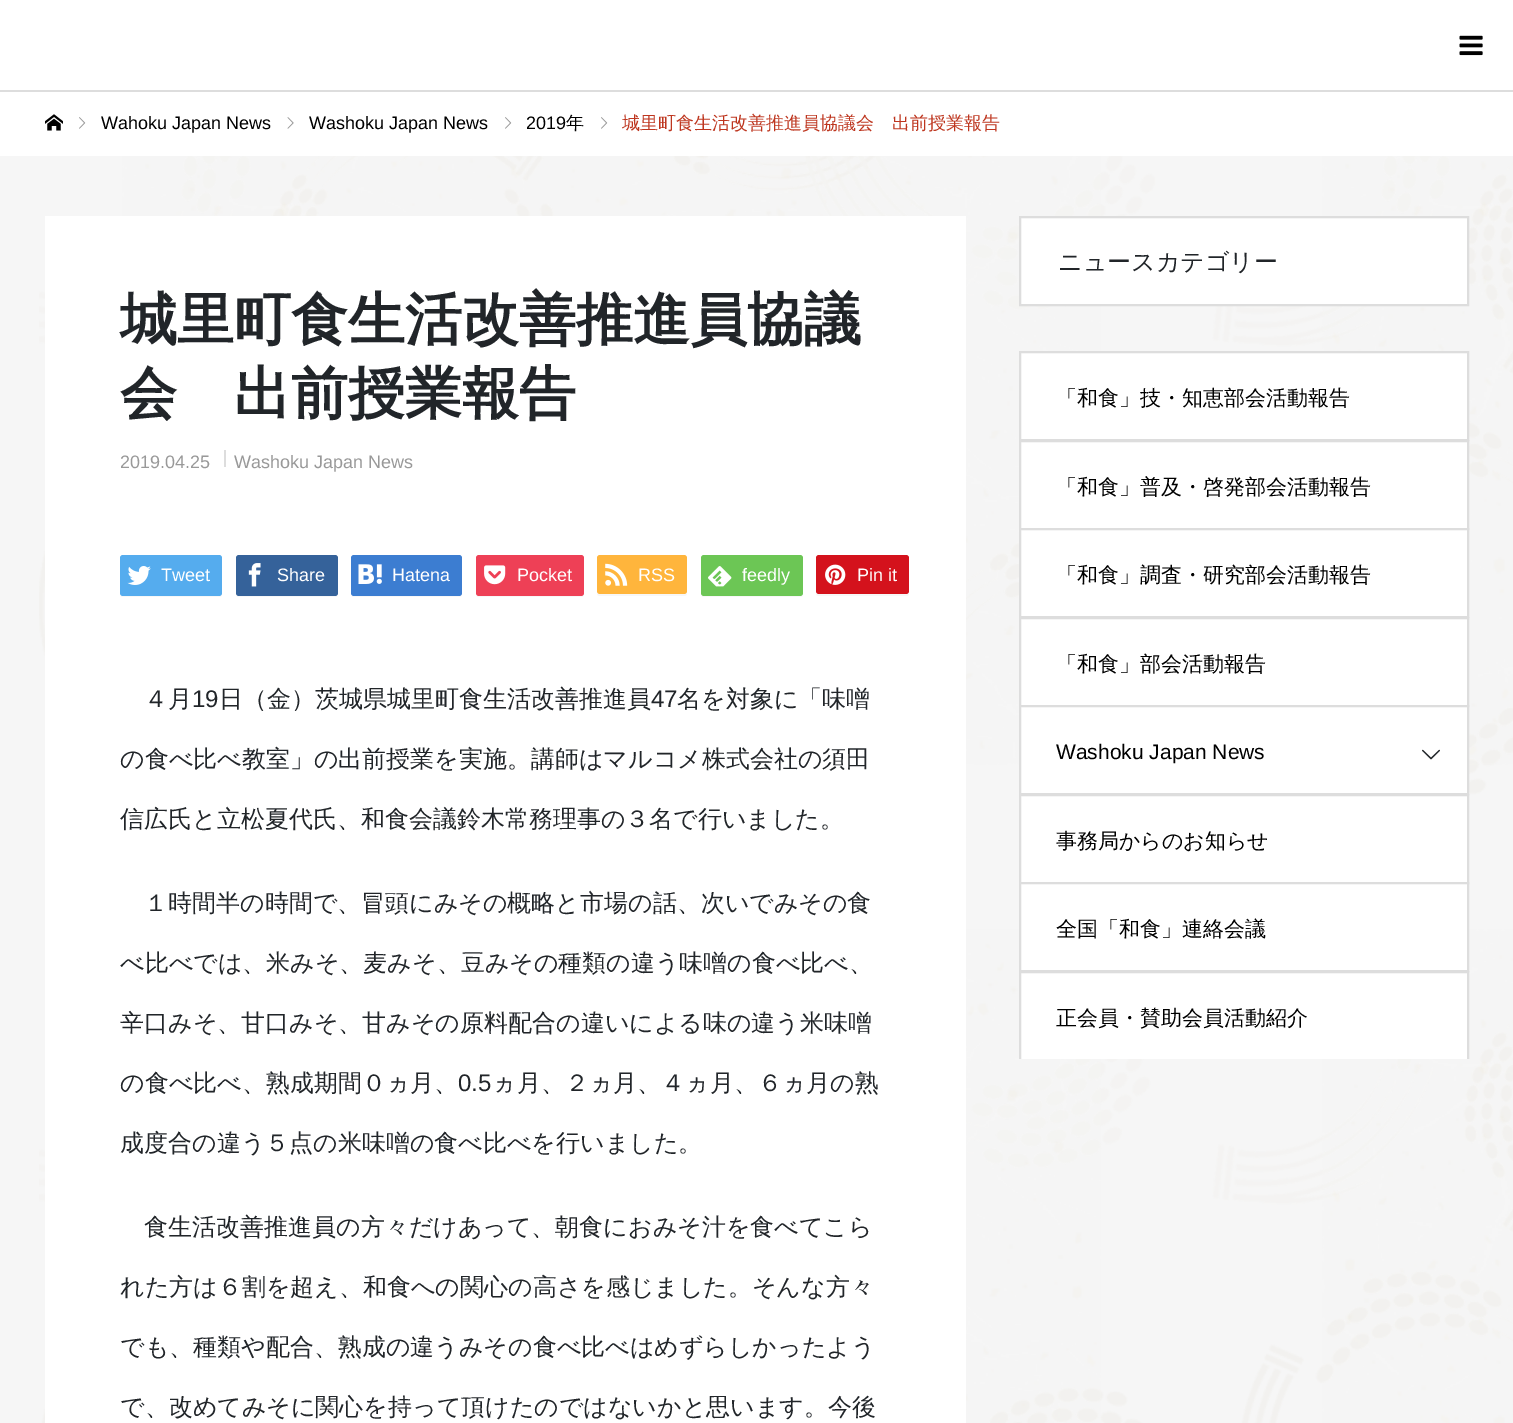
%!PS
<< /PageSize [1513 1423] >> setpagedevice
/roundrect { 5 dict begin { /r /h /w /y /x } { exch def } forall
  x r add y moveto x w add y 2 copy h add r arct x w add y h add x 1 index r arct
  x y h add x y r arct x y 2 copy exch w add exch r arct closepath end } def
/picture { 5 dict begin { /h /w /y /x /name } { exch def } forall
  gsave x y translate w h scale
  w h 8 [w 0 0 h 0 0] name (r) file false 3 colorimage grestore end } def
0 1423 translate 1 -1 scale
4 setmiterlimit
0.965 setgray
0 0 1513 1423 rectfill
(img1.rgb) 39 156 1474 1267 picture
1 setgray
0 0 1513 90 rectfill
0.867 setgray
0 90 1513 2 rectfill
(img2.rgb) 1459 35 24 21 picture
1 setgray
0 92 1513 64 rectfill
(img3.rgb) 45 114 18 17 picture
(img4.rgb) 79 117 7 12 picture
/LiberationSans-Regular [18 0 0 -18 0 0] selectfont
0 setgray
101 129 moveto (Wahoku Japan News) show
(img5.rgb) 287 117 7 12 picture
309 129 moveto (Washoku Japan News) show
(img4.rgb) 505 117 7 12 picture
526 129 moveto (2019) show
/WenQuanYiZenHei-Medium [18 0 0 -18 0 0] selectfont
566 129 moveto (年) show
(img4.rgb) 601 117 7 12 picture
0.745 0.212 0.122 setrgbcolor
622 129 moveto (城里町食生活改善推進員協議会　出前授業報告) show
1 setgray
45 216 921 1207 rectfill
/WenQuanYiZenHei-Bold [57 0 0 -57 0 0] selectfont
0.129 0.145 0.161 setrgbcolor
120 339 moveto (城里町食生活改善推進員協議) show
120 413 moveto (会　出前授業報告) show
/LiberationSans-Regular [18 0 0 -18 0 0] selectfont
0.6 setgray
120 468 moveto (2019.04.25) show
0.867 setgray
224 450 2 17 rectfill
0.6 setgray
234 468 moveto (Washoku Japan News) show
0.969 setgray
newpath 120 592 moveto 120 594 lineto 120 596 121 597 123 597 curveto 219 597 lineto 221 597 222 596 222 594 curveto 222 592 lineto 222 594 221 596 219 596 curveto 123 596 lineto 121 596 120 594 120 592 curveto closepath fill
0.333 0.675 0.933 setrgbcolor
120 555 102 41 3 roundrect fill
(img6.rgb) 127 566 24 19 picture
1 setgray
161 581 moveto (Tweet) show
0.969 setgray
newpath 236 594 moveto 236 596 237 597 239 597 curveto 335 597 lineto 337 597 338 596 338 594 curveto 338 560 lineto 338 558 lineto 338 592 lineto 338 594 336 596 334 596 curveto 238 596 lineto 237 596 237 595 236 594 curveto closepath fill
0.208 0.384 0.604 setrgbcolor
236 555 102 41 3 roundrect fill
(img7.rgb) 248 563 13 24 picture
1 setgray
277 581 moveto (Share) show
0.969 setgray
newpath 351 592 moveto 351 594 lineto 351 596 352 597 354 597 curveto 459 597 lineto 461 597 462 596 462 594 curveto 462 592 lineto 461 595 lineto 459 596 lineto 354 596 lineto 352 595 351 594 351 592 curveto closepath fill
0.235 0.49 0.82 setrgbcolor
351 555 111 41 3 roundrect fill
(img8.rgb) 358 564 24 20 picture
1 setgray
392 581 moveto (Hatena) show
0.969 setgray
newpath 476 594 moveto 476 596 477 597 479 597 curveto 581 597 lineto 583 597 584 596 584 594 curveto 584 560 lineto 584 558 lineto 584 592 lineto 584 594 582 596 580 596 curveto 478 596 lineto 477 596 477 595 476 594 curveto closepath fill
0.933 0.251 0.337 setrgbcolor
476 555 108 41 3 roundrect fill
(img9.rgb) 484 565 22 20 picture
1 setgray
517 581 moveto (Pocket) show
0.969 setgray
newpath 597 591 moveto 597 593 lineto 597 595 598 596 600 596 curveto 684 596 lineto 686 596 687 595 687 593 curveto 687 591 lineto 687 593 686 594 684 594 curveto 600 594 lineto 598 594 597 593 597 591 curveto closepath fill
1 0.71 0.235 setrgbcolor
597 555 90 39 3 roundrect fill
(img10.rgb) 605 563 23 23 picture
1 setgray
638 581 moveto (RSS) show
0.969 setgray
newpath 701 594 moveto 701 596 702 597 704 597 curveto 800 597 lineto 802 597 803 596 803 594 curveto 803 560 lineto 802 558 lineto 802 592 lineto 802 594 801 596 800 596 curveto 704 596 lineto 702 596 702 595 701 594 curveto closepath fill
0.424 0.776 0.333 setrgbcolor
701 555 102 41 3 roundrect fill
(img11.rgb) 708 566 24 21 picture
1 setgray
742 581 moveto (feedly) show
0.969 setgray
newpath 816 591 moveto 816 593 lineto 816 595 817 596 819 596 curveto 906 596 lineto 908 596 909 595 909 593 curveto 909 591 lineto 909 593 908 594 906 594 curveto 819 594 lineto 817 594 816 593 816 591 curveto closepath fill
0.831 0.071 0.11 setrgbcolor
816 555 93 39 3 roundrect fill
(img12.rgb) 825 564 21 21 picture
1 setgray
857 581 moveto (Pin it) show
/WenQuanYiZenHei-Medium [24 0 0 -24 0 0] selectfont
0.129 0.145 0.161 setrgbcolor
144 707 moveto (４月) show
/LiberationSans-Regular [24 0 0 -24 0 0] selectfont
192 707 moveto (19) show
/WenQuanYiZenHei-Medium [24 0 0 -24 0 0] selectfont
219 707 moveto (日（金）茨城県城里町食生活改善推進員) show
/LiberationSans-Regular [24 0 0 -24 0 0] selectfont
651 707 moveto (47) show
/WenQuanYiZenHei-Medium [24 0 0 -24 0 0] selectfont
677 707 moveto (名を対象に「味噌) show
120 767 moveto (の食べ比べ教室」の出前授業を実施。講師はマルコメ株式会社の須田) show
120 827 moveto (信広氏と立松夏代氏、和食会議鈴木常務理事の３名で行いました。) show
144 911 moveto (１時間半の時間で、冒頭にみその概略と市場の話、次いでみその食) show
120 971 moveto (べ比べでは、米みそ、麦みそ、豆みその種類の違う味噌の食べ比べ、) show
120 1031 moveto (辛口みそ、甘口みそ、甘みその原料配合の違いによる味の違う米味噌) show
120 1091 moveto (の食べ比べ、熟成期間０ヵ月、) show
/LiberationSans-Regular [24 0 0 -24 0 0] selectfont
458 1091 moveto (0.5) show
/WenQuanYiZenHei-Medium [24 0 0 -24 0 0] selectfont
492 1091 moveto (ヵ月、２ヵ月、４ヵ月、６ヵ月の熟) show
120 1151 moveto (成度合の違う５点の米味噌の食べ比べを行いました。) show
144 1235 moveto (食生活改善推進員の方々だけあって、朝食におみそ汁を食べてこら) show
120 1295 moveto (れた方は６割を超え、和食への関心の高さを感じました。そんな方々) show
120 1355 moveto (でも、種類や配合、熟成の違うみその食べ比べはめずらしかったよう) show
120 1415 moveto (で、改めてみそに関心を持って頂けたのではないかと思います。今後) show
1 setgray
newpath 1020 217 moveto 1468 217 lineto 1468 305 lineto 1020 305 lineto closepath gsave fill grestore
0.867 setgray
2 setlinewidth
stroke
0.129 0.145 0.161 setrgbcolor
1058 270 moveto (ニュースカテゴリー) show
1 setgray
newpath 1020 352 moveto 1468 352 lineto 1468 440 lineto 1020 440 lineto closepath gsave fill grestore
0.867 setgray
stroke
/WenQuanYiZenHei-Medium [21 0 0 -21 0 0] selectfont
0 setgray
1056 405 moveto (「和食」技・知恵部会活動報告) show
1 setgray
newpath 1020 441 moveto 1468 441 lineto 1468 529 lineto 1020 529 lineto closepath gsave fill grestore
0.867 setgray
stroke
0 setgray
1056 494 moveto (「和食」普及・啓発部会活動報告) show
1 setgray
newpath 1020 529 moveto 1468 529 lineto 1468 617 lineto 1020 617 lineto closepath gsave fill grestore
0.867 setgray
stroke
0 setgray
1056 582 moveto (「和食」調査・研究部会活動報告) show
1 setgray
newpath 1020 618 moveto 1468 618 lineto 1468 706 lineto 1020 706 lineto closepath gsave fill grestore
0.867 setgray
stroke
0 setgray
1056 671 moveto (「和食」部会活動報告) show
1 setgray
newpath 1020 706 moveto 1468 706 lineto 1468 794 lineto 1020 794 lineto closepath gsave fill grestore
0.867 setgray
stroke
/LiberationSans-Regular [21 0 0 -21 0 0] selectfont
0 setgray
1056 759 moveto (Washoku Japan News) show
(img13.rgb) 1422 749 18 11 picture
1 setgray
newpath 1020 795 moveto 1468 795 lineto 1468 883 lineto 1020 883 lineto closepath gsave fill grestore
0.867 setgray
stroke
/WenQuanYiZenHei-Medium [21 0 0 -21 0 0] selectfont
0 setgray
1056 848 moveto (事務局からのお知らせ) show
1 setgray
newpath 1020 883 moveto 1468 883 lineto 1468 971 lineto 1020 971 lineto closepath gsave fill grestore
0.867 setgray
stroke
0 setgray
1056 936 moveto (全国「和食」連絡会議) show
1 setgray
1021 973 446 86 rectfill
gsave
974 216 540 843 rectclip
0.867 setgray
1020 972 448 88 rectstroke
grestore
0 setgray
1056 1025 moveto (正会員・賛助会員活動紹介) show
showpage
